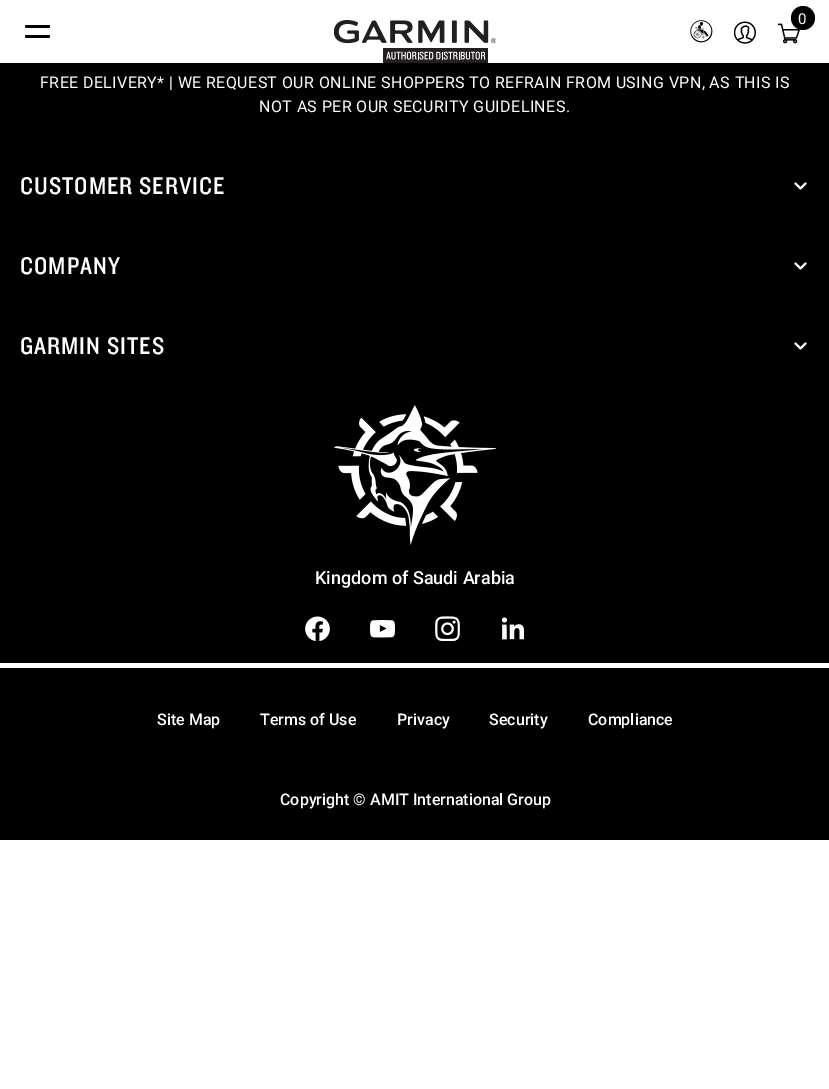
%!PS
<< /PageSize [829 1089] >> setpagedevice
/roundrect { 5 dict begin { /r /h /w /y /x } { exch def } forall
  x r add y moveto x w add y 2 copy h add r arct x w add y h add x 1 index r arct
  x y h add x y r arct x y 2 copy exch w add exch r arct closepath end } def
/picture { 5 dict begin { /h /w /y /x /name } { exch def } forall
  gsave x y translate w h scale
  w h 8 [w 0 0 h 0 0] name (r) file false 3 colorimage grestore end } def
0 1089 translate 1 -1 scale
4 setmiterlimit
1 setgray
0 0 829 1089 rectfill
0 setgray
25 25 25 3 1.5 roundrect fill
25 35 25 3 1.5 roundrect fill
(img1.rgb) 334 20 162 43 picture
(img2.rgb) 690 20 23 23 picture
(img3.rgb) 734 21 22 23 picture
(img4.rgb) 778 23 22 21 picture
newpath 803 18 12 0 360 arc closepath fill
/Roboto-Regular [15 0 0 -15 0 0] selectfont
1 setgray
798 24 moveto (0) show
0 setgray
0 63 829 777 rectfill
/Roboto-Regular [16 0 0 -16 0 0] selectfont
1 setgray
40 88 moveto 0.4 0 (FREE DELIVERY* | WE REQUEST OUR ONLINE SHOPPERS TO REFRAIN FROM USING VPN, AS THIS IS) ashow
259 112 moveto 0.4 0 (NOT AS PER OUR SECURITY GUIDELINES.) ashow
/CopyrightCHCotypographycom-Regular [25 0 0 -25 0 0] selectfont
20 194 moveto 1 0 (CUSTOMER SERVICE) ashow
1.9 setlinewidth
1 setlinecap
1 setlinejoin
newpath 805.5 183.5 moveto 800.5 188.5 lineto 795.5 183.5 lineto stroke
20 274 moveto 1 0 (COMPANY) ashow
newpath 805.5 263.5 moveto 800.5 268.5 lineto 795.5 263.5 lineto stroke
20 354 moveto 1 0 (GARMIN SITES) ashow
newpath 805.5 343.5 moveto 800.5 348.5 lineto 795.5 343.5 lineto stroke
0 663 829 5 rectfill
(img5.rgb) 334 405 162 140 picture
/Roboto-Medium [18 0 0 -18 0 0] selectfont
315 584 moveto (Kingdom of Saudi Arabia) show
(img6.rgb) 305 616 25 25 picture
(img7.rgb) 370 620 25 18 picture
(img8.rgb) 435 616 25 25 picture
(img9.rgb) 501 617 23 23 picture
/Roboto-Medium [16 0 0 -16 0 0] selectfont
157 725 moveto (Site Map) show
260 725 moveto (Terms of Use) show
397 725 moveto (Privacy) show
489 725 moveto (Security) show
588 725 moveto (Compliance) show
280 805 moveto (Copyright © AMIT International Group) show
showpage
